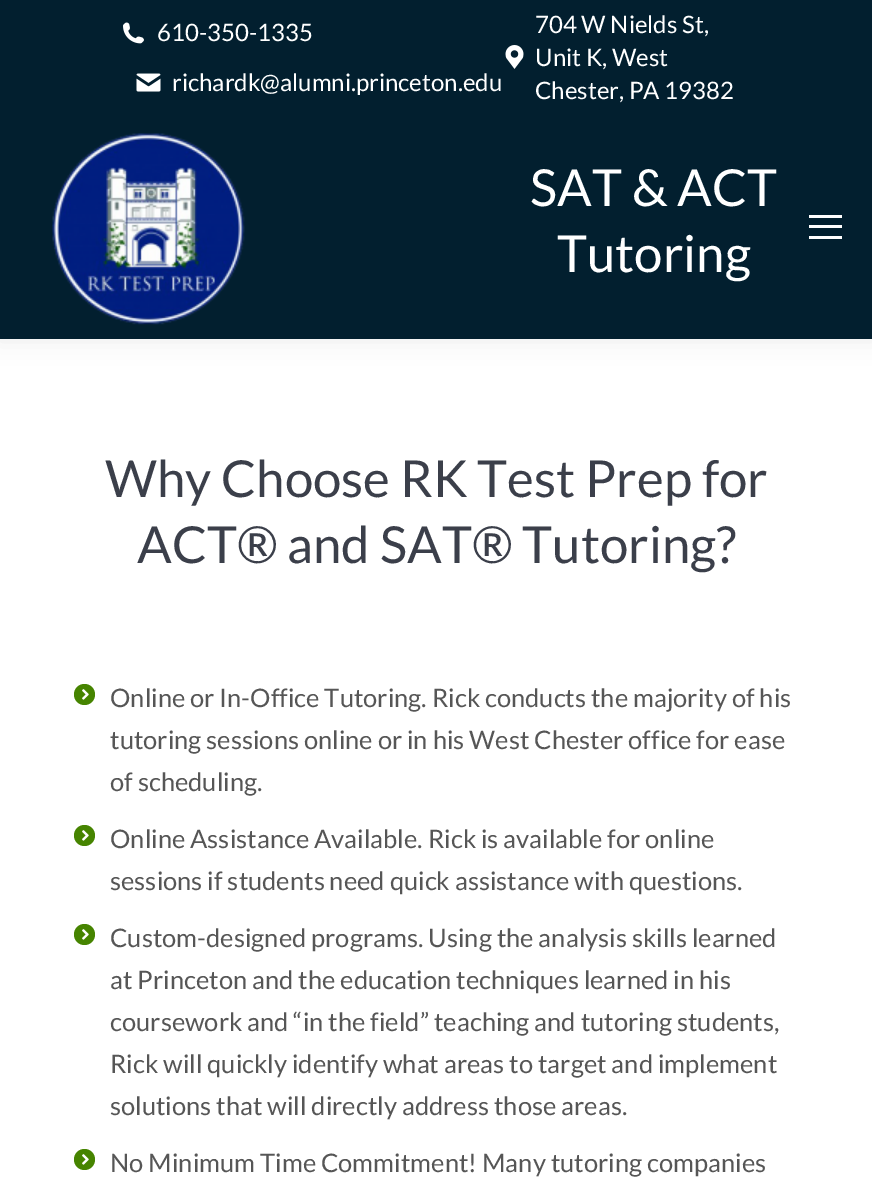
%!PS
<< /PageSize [872 1193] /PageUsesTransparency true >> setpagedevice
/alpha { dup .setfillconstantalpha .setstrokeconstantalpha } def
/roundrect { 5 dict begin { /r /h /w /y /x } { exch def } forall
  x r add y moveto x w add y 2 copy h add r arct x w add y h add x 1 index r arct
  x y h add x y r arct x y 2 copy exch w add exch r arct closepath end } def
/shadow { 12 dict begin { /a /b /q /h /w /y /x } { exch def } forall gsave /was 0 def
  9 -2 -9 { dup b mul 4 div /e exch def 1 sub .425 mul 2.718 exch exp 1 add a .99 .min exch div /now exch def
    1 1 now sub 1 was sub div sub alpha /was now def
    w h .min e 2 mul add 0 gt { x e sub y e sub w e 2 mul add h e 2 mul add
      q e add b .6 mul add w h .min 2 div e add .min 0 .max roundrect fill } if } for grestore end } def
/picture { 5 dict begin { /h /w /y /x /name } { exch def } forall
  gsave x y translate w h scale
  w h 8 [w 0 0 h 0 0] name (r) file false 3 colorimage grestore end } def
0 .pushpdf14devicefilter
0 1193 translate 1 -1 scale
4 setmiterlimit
1 setgray
0 0 872 1193 rectfill
0 setgray
-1 -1 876 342 0 11 0.07 shadow
0.008 0.122 0.184 setrgbcolor
0 0 872 339 rectfill
(img1.rgb) 123 22 21 22 picture
/Lato-Regular [24 0 0 -24 0 0] selectfont
1 setgray
157 41 moveto (610-350-1335) show
(img2.rgb) 136 73 25 19 picture
172 91 moveto (richardk@alumni.princeton.edu) show
535 33 moveto (704 W Nields St,) show
(img3.rgb) 505 45 19 24 picture
535 66 moveto (Unit K, West) show
535 99 moveto (Chester, PA 19382) show
(img4.rgb) 52 133 193 192 picture
/Lato-Regular [51 0 0 -51 0 0] selectfont
530 206 moveto (SAT & ACT) show
557 272 moveto (Tutoring) show
809 215 33 3 rectfill
809 225 33 3 rectfill
809 236 33 3 rectfill
0.231 0.247 0.29 setrgbcolor
105 497 moveto (Why Choose RK Test Prep for) show
137 563 moveto (ACT® and SAT® Tutoring?) show
0.275 0.518 0 setrgbcolor
newpath 84.5 694.5 10.5 0 360 arc closepath fill
/Lato-Regular [25.5 0 0 -25.5 0 0] selectfont
0.337 setgray
110 707 moveto (Online or In-Office Tutoring. Rick conducts the majority of his) show
(img5.rgb) 82 689 7 11 picture
110 749 moveto (tutoring sessions online or in his West Chester office for ease) show
110 791 moveto (of scheduling.) show
0.275 0.518 0 setrgbcolor
newpath 84.5 835.5 10.5 0 360 arc closepath fill
0.337 setgray
110 848 moveto (Online Assistance Available. Rick is available for online) show
(img5.rgb) 82 830 7 11 picture
110 890 moveto (sessions if students need quick assistance with questions.) show
0.275 0.518 0 setrgbcolor
newpath 84.5 934.5 10.5 0 360 arc closepath fill
0.337 setgray
110 947 moveto (Custom-designed programs. Using the analysis skills learned) show
(img5.rgb) 82 929 7 11 picture
110 989 moveto (at Princeton and the education techniques learned in his) show
110 1031 moveto (coursework and “in the field” teaching and tutoring students,) show
110 1073 moveto (Rick will quickly identify what areas to target and implement) show
110 1115 moveto (solutions that will directly address those areas.) show
0.275 0.518 0 setrgbcolor
newpath 84.5 1159.5 10.5 0 360 arc closepath fill
0.337 setgray
110 1172 moveto (No Minimum Time Commitment! Many tutoring companies) show
(img5.rgb) 82 1154 7 11 picture
.poppdf14devicefilter showpage
